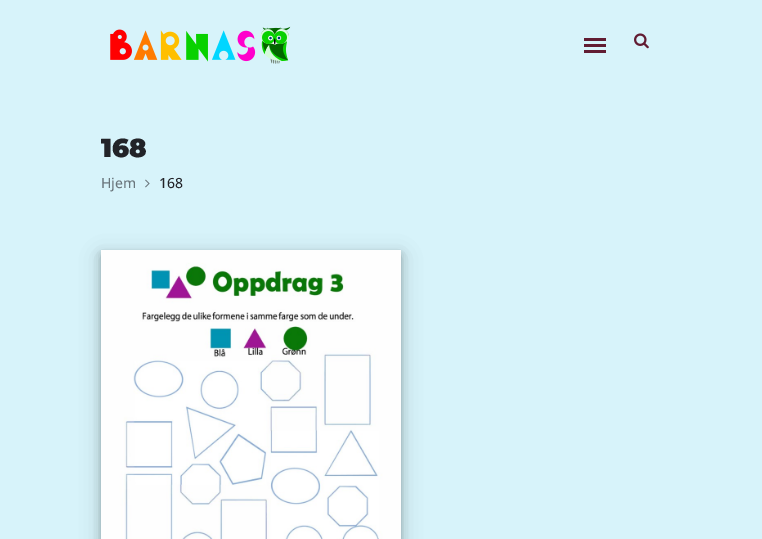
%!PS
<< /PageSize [762 539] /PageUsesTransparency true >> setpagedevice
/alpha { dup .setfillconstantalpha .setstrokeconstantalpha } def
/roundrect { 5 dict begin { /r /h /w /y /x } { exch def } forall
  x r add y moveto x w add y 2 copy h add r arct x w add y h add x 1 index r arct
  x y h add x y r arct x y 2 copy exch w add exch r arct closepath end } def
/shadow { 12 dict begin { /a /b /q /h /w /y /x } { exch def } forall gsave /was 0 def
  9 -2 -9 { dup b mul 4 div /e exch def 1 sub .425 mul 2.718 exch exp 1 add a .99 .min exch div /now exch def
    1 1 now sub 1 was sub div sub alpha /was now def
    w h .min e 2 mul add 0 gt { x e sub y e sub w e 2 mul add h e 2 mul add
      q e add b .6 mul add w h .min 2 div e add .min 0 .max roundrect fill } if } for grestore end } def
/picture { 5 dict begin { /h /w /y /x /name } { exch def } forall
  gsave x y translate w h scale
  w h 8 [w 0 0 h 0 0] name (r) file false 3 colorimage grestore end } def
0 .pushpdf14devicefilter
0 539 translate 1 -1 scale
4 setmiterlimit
0.843 0.953 0.98 setrgbcolor
0 0 762 539 rectfill
(img1.rgb) 110 26 181 38 picture
0.38 0.11 0.196 setrgbcolor
584 44 22 3 rectfill
584 38 22 3 rectfill
584 50 22 3 rectfill
(img2.rgb) 634 33 15 16 picture
/Montserrat-Black [26 0 0 -26 0 0] selectfont
0.133 0.137 0.157 setrgbcolor
101 157 moveto (168) show
/OpenSans-Medium [14 0 0 -14 0 0] selectfont
0.416 0.463 0.486 setrgbcolor
101 188 moveto (Hjem) show
(img3.rgb) 145 179 5 9 picture
0.133 0.137 0.157 setrgbcolor
159 188 moveto (168) show
0 setgray
101 256 300 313 0 10 0.19 shadow
101 254 300 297 0 4 0.2 shadow
(img4.rgb) 101 250 300 289 picture
.poppdf14devicefilter showpage
